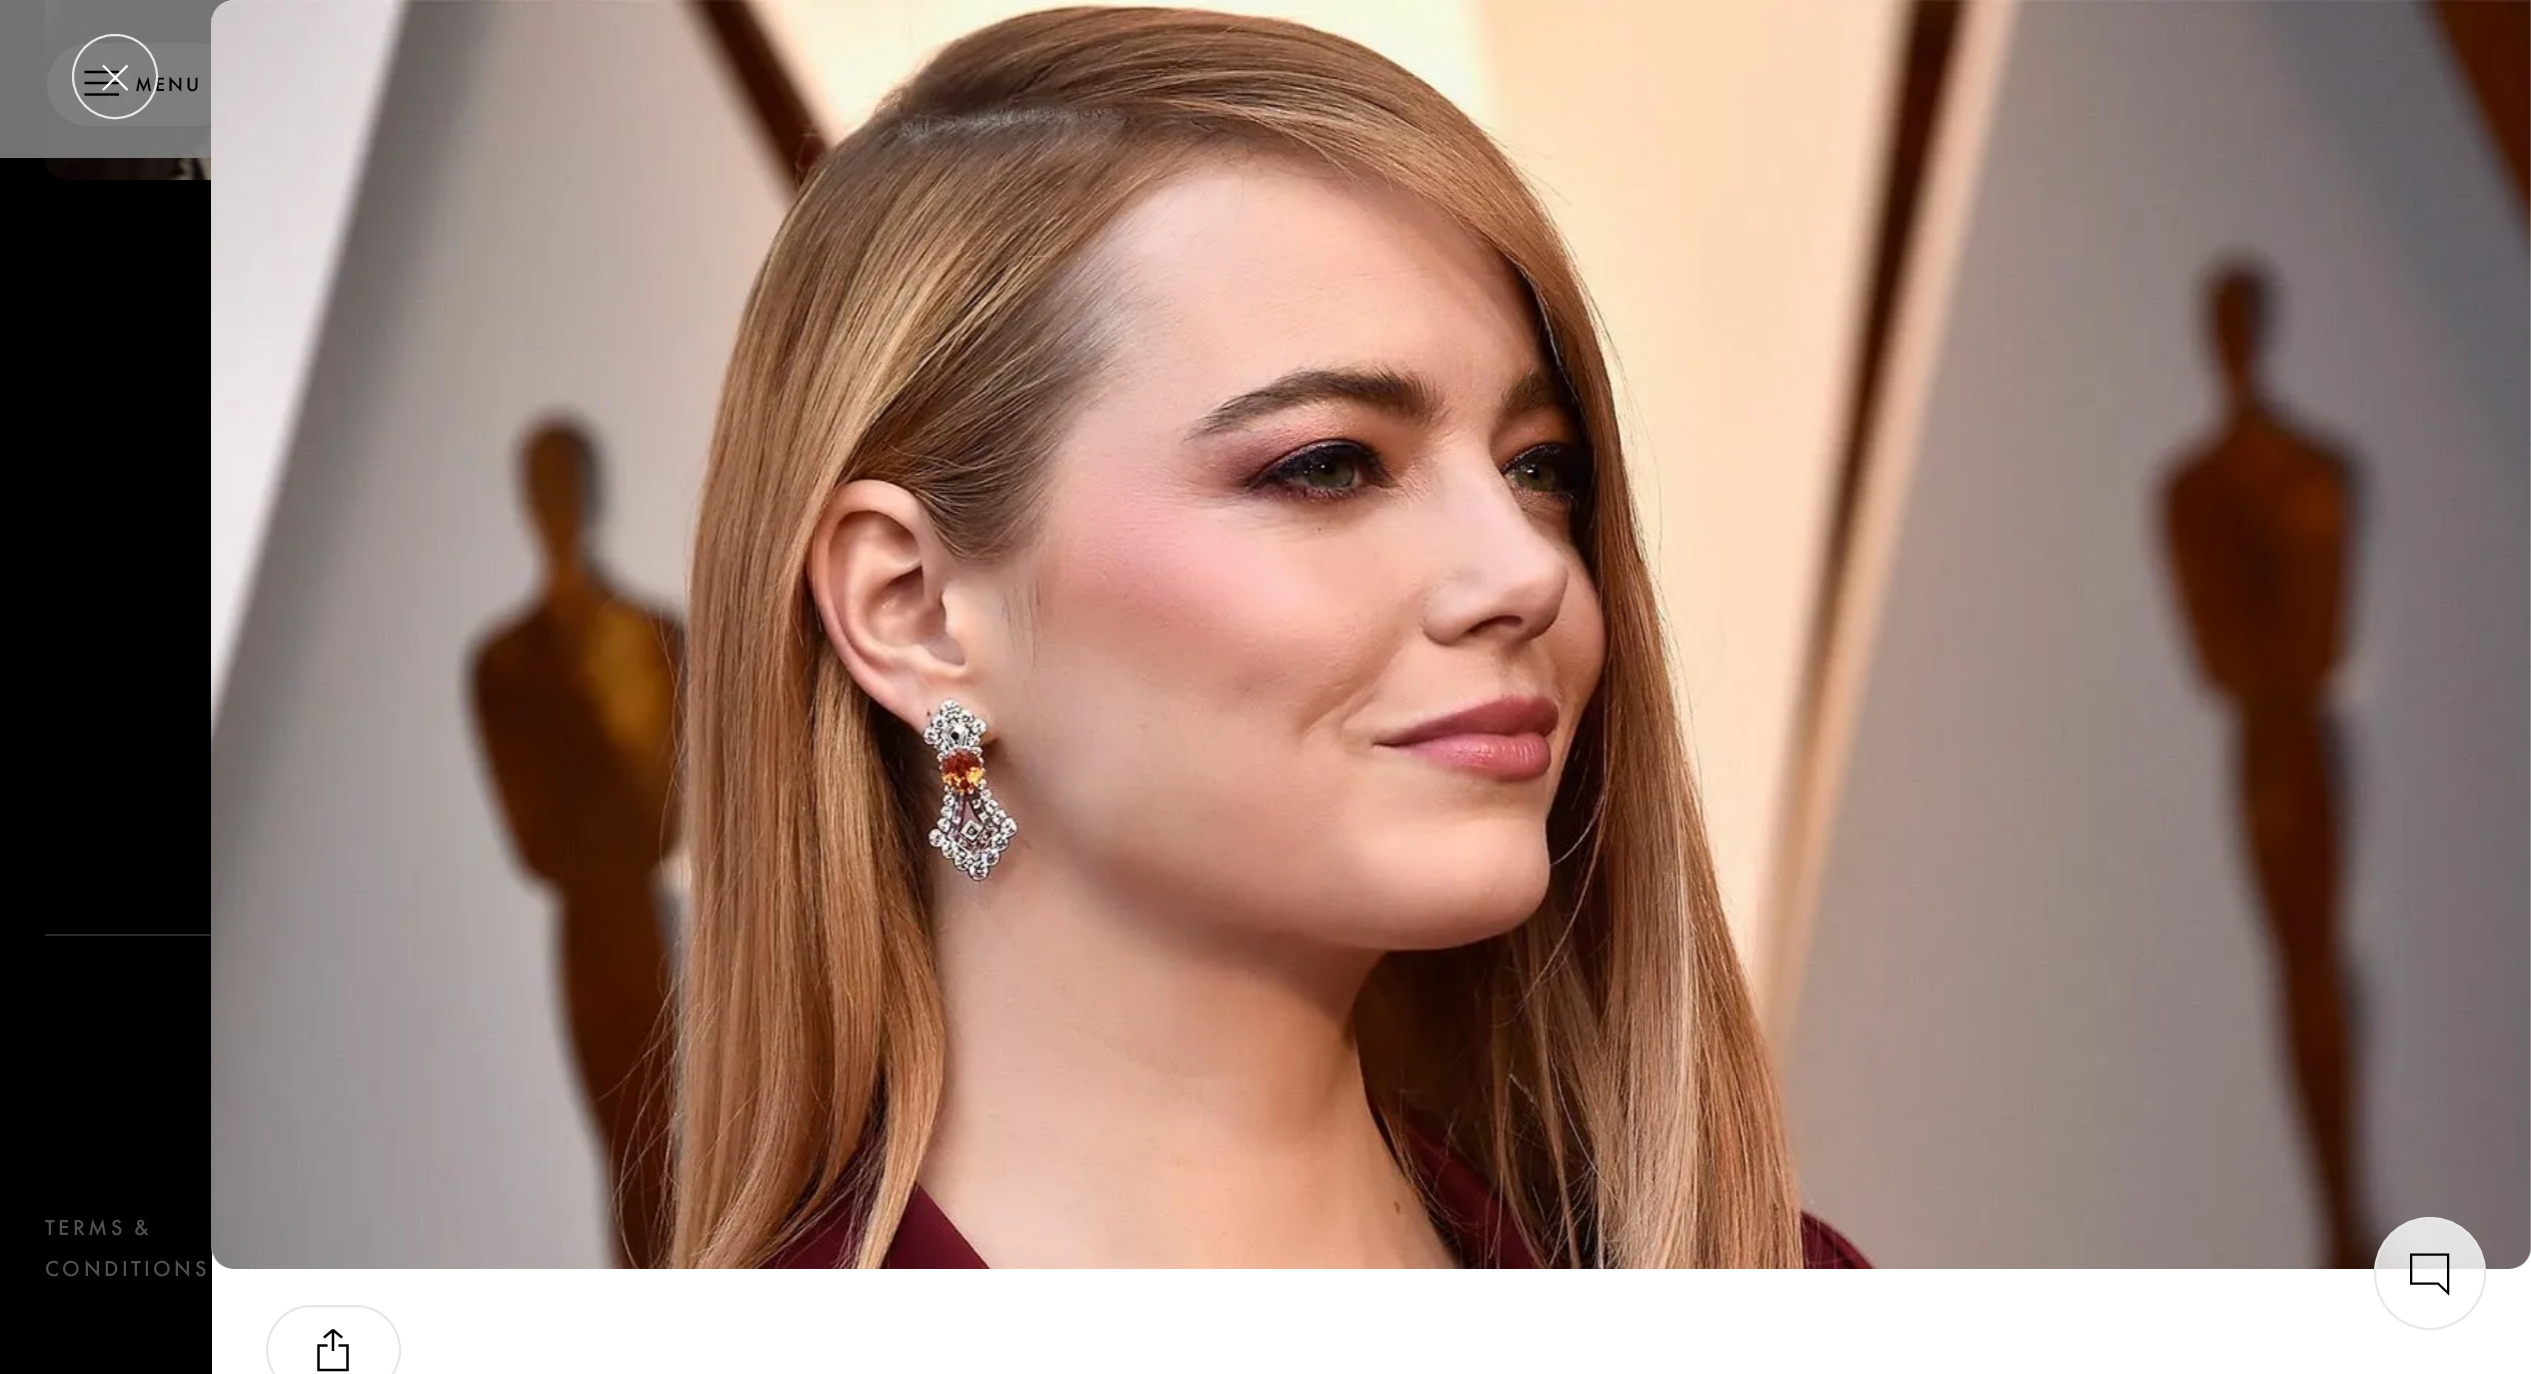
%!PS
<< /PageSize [2531 1374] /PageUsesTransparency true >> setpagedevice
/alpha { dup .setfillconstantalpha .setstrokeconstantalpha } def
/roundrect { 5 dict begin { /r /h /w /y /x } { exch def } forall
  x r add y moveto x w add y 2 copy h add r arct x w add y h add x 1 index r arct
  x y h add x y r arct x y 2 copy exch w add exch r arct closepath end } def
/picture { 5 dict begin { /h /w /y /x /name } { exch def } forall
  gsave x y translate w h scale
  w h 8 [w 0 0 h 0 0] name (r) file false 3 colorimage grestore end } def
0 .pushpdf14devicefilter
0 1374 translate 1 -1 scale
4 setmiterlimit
0 setgray
0 0 2531 1374 rectfill
(img2.rgb) 45 0 189 180 picture
(img3.rgb) 85 51 73 74 picture
0.9 alpha
0.502 setgray
0 0 234 158 rectfill
0.8 alpha
46 42 194 85 42.5 roundrect fill
1 alpha
0.455 setgray
2 setlinewidth
46 42 194 85 42.5 roundrect stroke
1 setgray
newpath 235 0 moveto 2531 0 lineto 2531 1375 lineto 212 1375 lineto 212 23 lineto 212 10.5 222.5 0 235 0 curveto closepath fill
0 setgray
2.2 setlinewidth
newpath 84.5 72 moveto 119 72 lineto 84.5 83 moveto 119 83 lineto 84.5 94.5 moveto 119 94.5 lineto stroke
/FuturaPT-Medium [20 0 0 -20 0 0] selectfont
135 91 moveto 3 0 (MENU) ashow
0.906 setgray
2 setlinewidth
73 35 84 83 41.5 roundrect stroke
1 setgray
1.8 setlinewidth
newpath 103 65.5 moveto 127.5 90 lineto 103 90 moveto 127.5 65.5 lineto stroke
(img1.rgb) 211 0 2320 1269 picture
0.8 alpha
2375 1218 110 111 55 roundrect fill
1 alpha
0.906 setgray
2 setlinewidth
2375 1218 110 111 55 roundrect stroke
0 setgray
1.9 setlinewidth
newpath 2411 1254.5 moveto 2411 1283.5 lineto 2438 1283.5 lineto 2448 1293 lineto 2448 1254.5 lineto 2410 1254.5 lineto stroke
0.906 setgray
2 setlinewidth
267 1306 133 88 44 roundrect stroke
0 setgray
2.2 setlinewidth
newpath 333 1330 moveto 333 1351 lineto 333 1330 moveto 324 1337.5 lineto 333 1330 moveto 342 1337.5 lineto 327.5 1345.5 moveto 318.5 1345.5 lineto 318.5 1370 lineto 347.5 1370 lineto 347.5 1345.5 lineto 338.5 1345.5 lineto stroke
0.157 setgray
45 934 166 2 rectfill
/FuturaPT-Medium [22.5 0 0 -22.5 0 0] selectfont
0.31 setgray
45 1235 moveto 3.4 0 (TERMS &) ashow
45 1276 moveto 3.4 0 (CONDITIONS) ashow
.poppdf14devicefilter showpage
